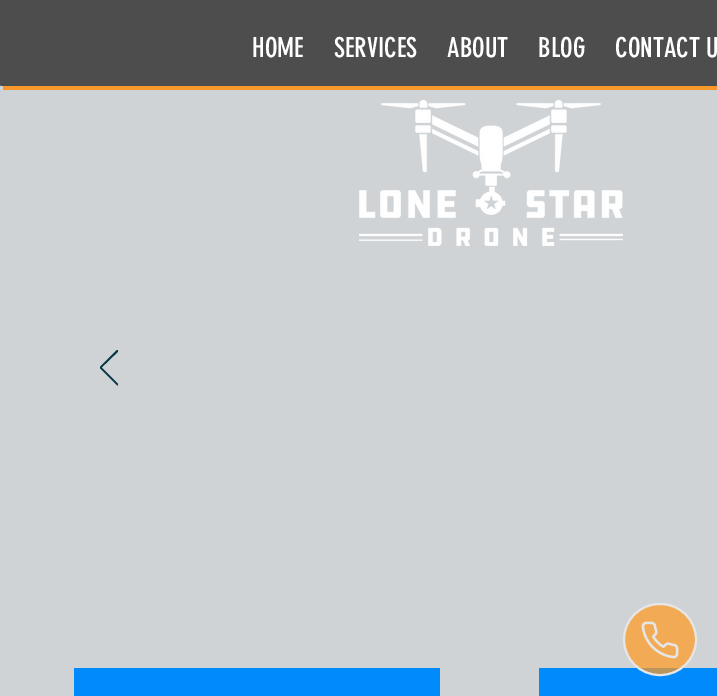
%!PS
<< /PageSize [717 696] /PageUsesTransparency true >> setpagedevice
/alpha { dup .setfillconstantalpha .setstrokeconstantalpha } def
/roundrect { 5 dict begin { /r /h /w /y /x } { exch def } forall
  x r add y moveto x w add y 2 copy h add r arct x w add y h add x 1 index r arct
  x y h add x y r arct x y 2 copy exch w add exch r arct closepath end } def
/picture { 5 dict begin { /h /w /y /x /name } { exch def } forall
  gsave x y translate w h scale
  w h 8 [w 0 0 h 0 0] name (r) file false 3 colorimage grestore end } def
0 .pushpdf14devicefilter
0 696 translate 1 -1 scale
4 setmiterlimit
0.812 0.827 0.839 setrgbcolor
0 0 717 696 rectfill
0.973 0.592 0.165 setrgbcolor
3 86 714 4 rectfill
0.302 setgray
newpath 0 0 moveto 0 85 lineto 0 86 2 86 5 86 curveto 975 86 lineto 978 86 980 86 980 85 curveto 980 0 lineto closepath fill
/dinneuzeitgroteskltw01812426-Regular [27 0 0 -27 0 0] selectfont
1 setgray
252 57 moveto (HOME) show
334 57 moveto (SERVICES) show
447 57 moveto (ABOUT) show
538 57 moveto (BLOG) show
615 57 moveto (CONTACT U) show
(img1.rgb) 359 100 264 146 picture
gsave
100 350 18 36 rectclip
0.024 0.216 0.267 setrgbcolor
0.9 setlinewidth
newpath 117.5 385 moveto 100 367.5 lineto 117.5 350 lineto 118 351 lineto 101 367.5 lineto 118 384.5 lineto closepath stroke
grestore
0 0.541 0.988 setrgbcolor
74 668 366 28 rectfill
539 668 178 28 rectfill
0.73 alpha
1 0.608 0.141 setrgbcolor
624 604 72 71 35.5 roundrect fill
1 alpha
0.902 setgray
2 setlinewidth
624 604 72 71 35.5 roundrect stroke
(img2.rgb) 641 621 38 38 picture
.poppdf14devicefilter showpage
